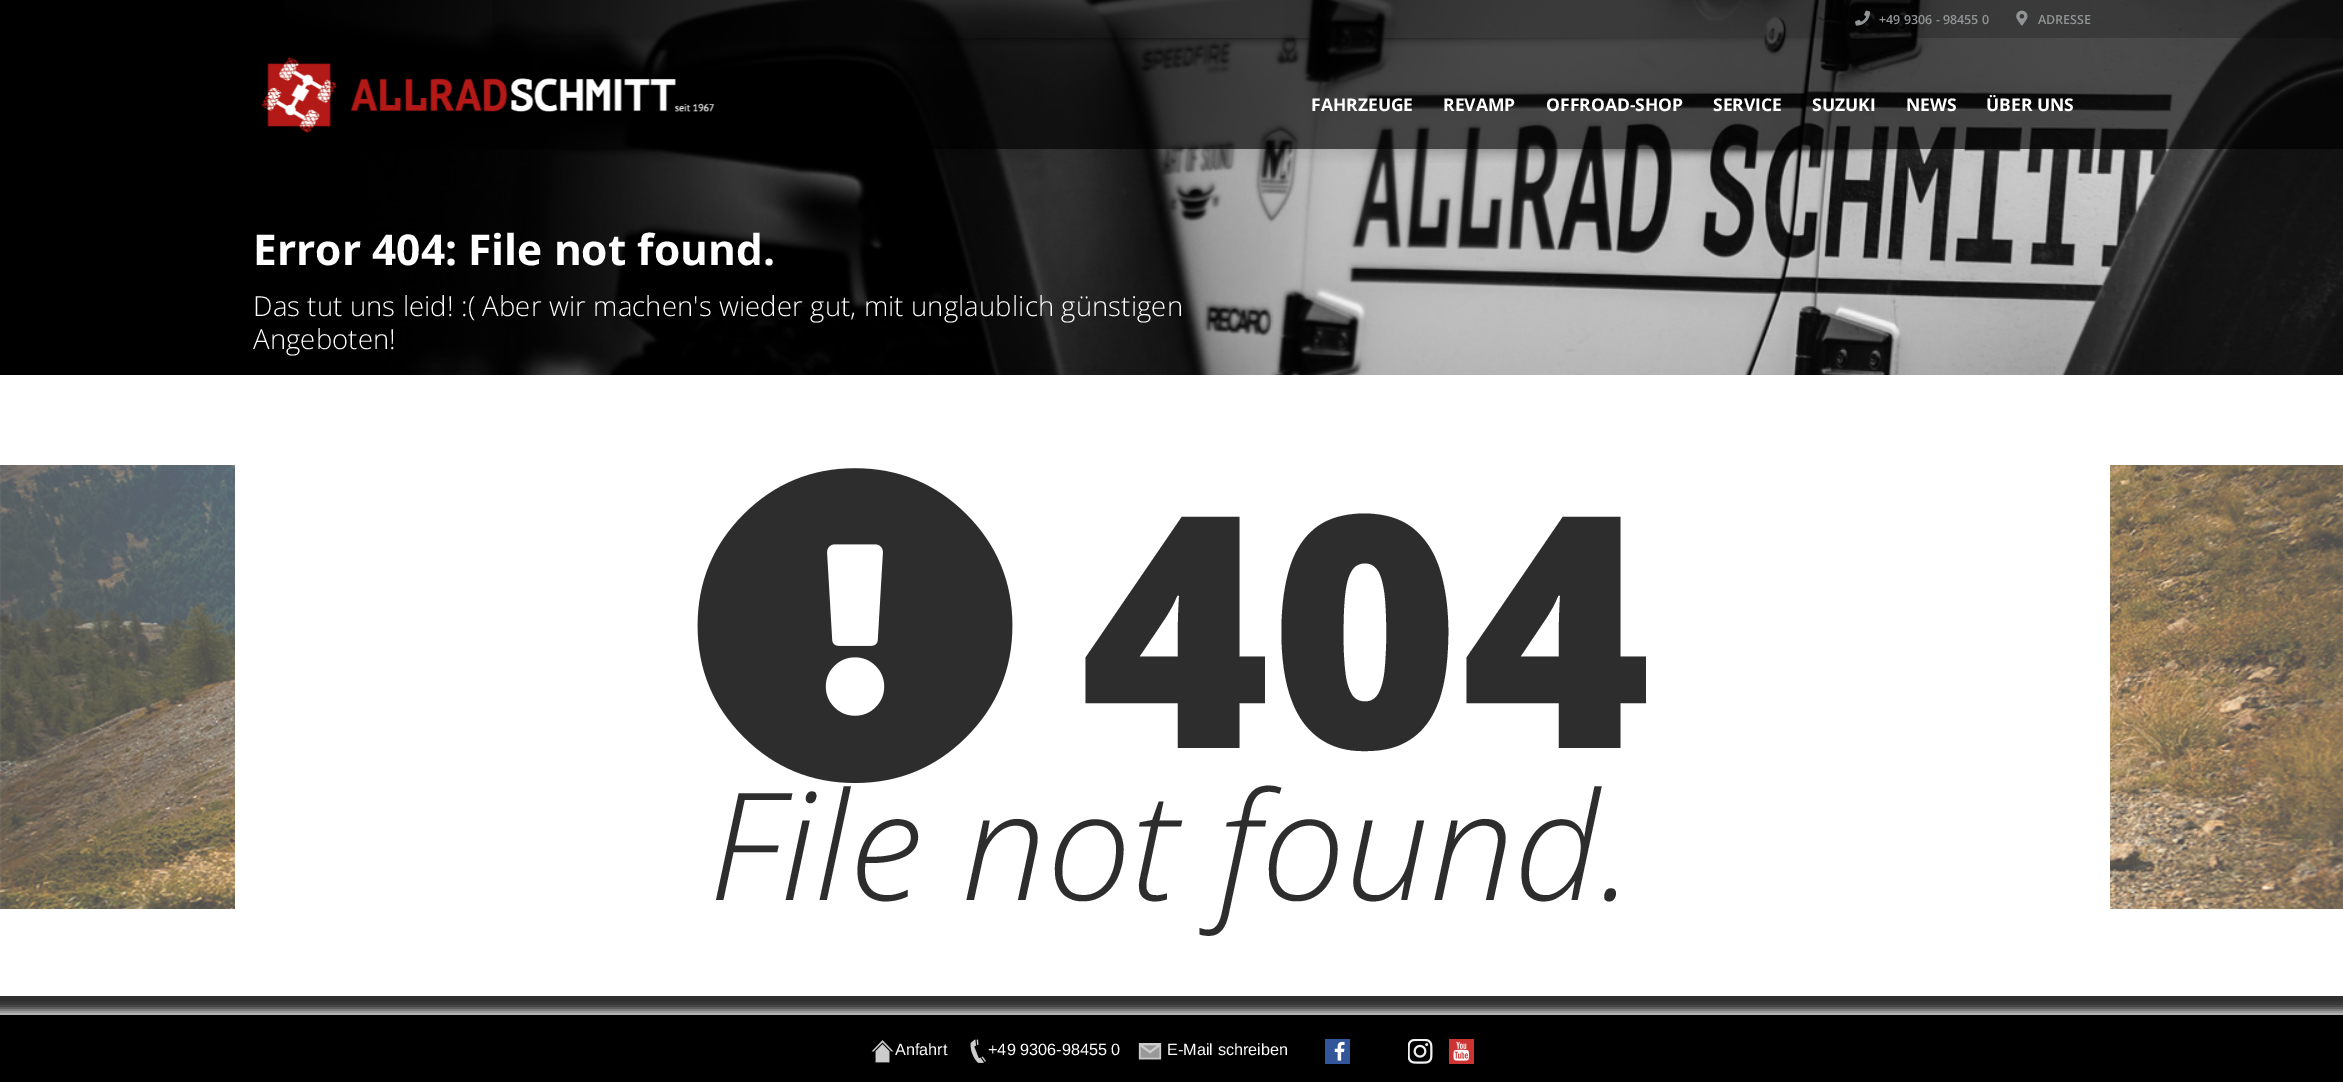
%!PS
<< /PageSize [2343 1082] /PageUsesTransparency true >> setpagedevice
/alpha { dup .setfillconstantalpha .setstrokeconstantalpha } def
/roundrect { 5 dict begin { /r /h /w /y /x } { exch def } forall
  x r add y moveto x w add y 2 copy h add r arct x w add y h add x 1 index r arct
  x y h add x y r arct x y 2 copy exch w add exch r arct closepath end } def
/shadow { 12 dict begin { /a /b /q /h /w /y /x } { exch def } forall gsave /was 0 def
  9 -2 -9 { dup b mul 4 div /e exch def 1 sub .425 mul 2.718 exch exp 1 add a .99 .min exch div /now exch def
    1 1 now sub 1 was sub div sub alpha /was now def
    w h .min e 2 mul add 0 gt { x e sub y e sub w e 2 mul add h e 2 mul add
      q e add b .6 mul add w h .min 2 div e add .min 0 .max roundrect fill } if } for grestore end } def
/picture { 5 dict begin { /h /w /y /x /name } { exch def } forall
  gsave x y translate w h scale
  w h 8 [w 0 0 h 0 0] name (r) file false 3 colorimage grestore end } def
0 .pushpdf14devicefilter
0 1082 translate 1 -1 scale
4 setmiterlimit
1 setgray
0 0 2343 1082 rectfill
(img6.rgb) 284 0 2059 375 picture
0.65 alpha
0 setgray
284 0 2059 149 rectfill
0.2 alpha
492 0 1851 38 rectfill
1 alpha
(img1.rgb) 1855 10 15 16 picture
/OpenSans-SemiBold [12.5 0 0 -12.5 0 0] selectfont
0.573 0.584 0.588 setrgbcolor
1879 24 moveto (+49 9306 - 98455 0) show
(img2.rgb) 2016 10 12 16 picture
2038 24 moveto (ADRESSE) show
(img3.rgb) 621 38 1201 8 picture
0 setgray
0 0 284 375 rectfill
(img4.rgb) 261 57 454 76 picture
/OpenSans-Bold [17.5 0 0 -17.5 0 0] selectfont
1 setgray
1311 111 moveto (FAHRZEUGE) show
1443 111 moveto (REVAMP) show
1546 111 moveto (OFFROAD-SHOP) show
1713 111 moveto (SERVICE) show
1812 111 moveto (SUZUKI) show
1906 111 moveto (NEWS) show
1986 111 moveto (ÜBER UNS) show
(img5.rgb) 552 149 1404 14 picture
/OpenSans-Bold [42.5 0 0 -42.5 0 0] selectfont
253 265 moveto (Error 404: File not found.) show
/OpenSans-Light [27.5 0 0 -27.5 0 0] selectfont
253 316 moveto 0.12 0 (Das tut uns leid! :\( Aber wir machen's wieder gut, mit unglaublich günstigen) ashow
253 349 moveto 0.12 0 (Angeboten!) ashow
(img7.rgb) 0 465 2343 444 picture
235 465 1875 444 rectfill
(img8.rgb) 697 468 316 316 picture
/OpenSans-ExtraBold [325 0 0 -325 0 0] selectfont
0.176 setgray
1080 748 moveto (404) show
/OpenSans-LightItalic [150 0 0 -150 0 0] selectfont
709 900 moveto (File not found.) show
0.184 setgray
0 996 2343 19 rectfill
0.8 setgray
-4 1010 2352 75 0 4 1 shadow
0 setgray
0 1015 2343 67 rectfill
(img9.rgb) 871 1040 23 23 picture
/LiberationSans-Regular [16.25 0 0 -16.25 0 0] selectfont
1 setgray
895 1055 moveto (Anfahrt) show
(img10.rgb) 970 1039 16 24 picture
988 1055 moveto (+49 9306-98455 0) show
(img11.rgb) 1138 1043 24 17 picture
1167 1055 moveto (E-Mail schreiben) show
(img12.rgb) 1325 1039 25 25 picture
(img13.rgb) 1408 1039 25 25 picture
(img14.rgb) 1449 1039 25 25 picture
.poppdf14devicefilter showpage
